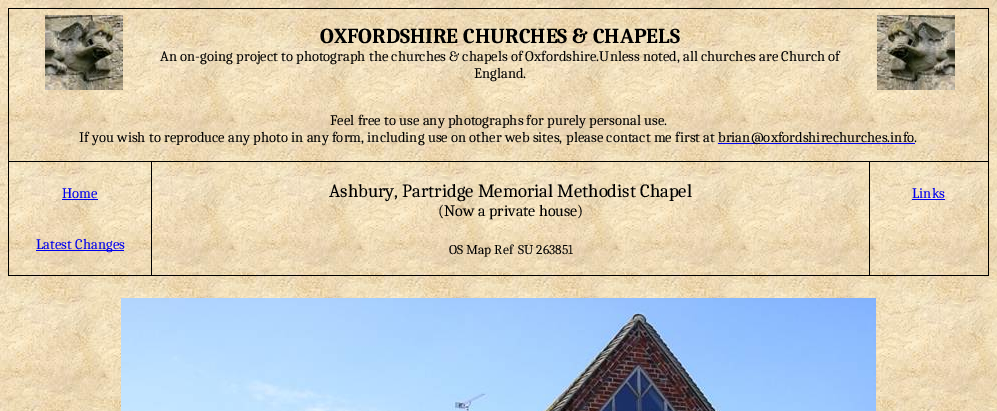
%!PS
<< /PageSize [997 411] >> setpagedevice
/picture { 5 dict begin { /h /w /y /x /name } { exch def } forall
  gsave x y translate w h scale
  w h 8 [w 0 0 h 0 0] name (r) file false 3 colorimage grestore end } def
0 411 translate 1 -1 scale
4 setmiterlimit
1 setgray
0 0 997 411 rectfill
(img1.rgb) 0 0 997 411 picture
0 setgray
8 8 981 1 rectfill
988 96 1 180 rectfill
988 8 1 89 rectfill
(img2.rgb) 877 15 78 75 picture
869 275 120 1 rectfill
869 161 1 115 rectfill
151 275 719 1 rectfill
151 161 1 115 rectfill
8 275 144 1 rectfill
8 161 1 115 rectfill
8 161 981 1 rectfill
8 96 1 66 rectfill
8 8 1 89 rectfill
(img3.rgb) 45 15 78 75 picture
/Caladea-Bold [21.3 0 0 -21.3 0 0] selectfont
320 43 moveto (OXFORDSHIRE CHURCHES & CHAPELS) show
/Caladea-Regular [14.65 0 0 -14.65 0 0] selectfont
160 61 moveto (An on-going project to photograph the churches & chapels of Oxfordshire.Unless noted, all churches are Church of) show
474 78 moveto (England.) show
330 125 moveto (Feel free to use any photographs for purely personal use.) show
79 142 moveto (If you wish to reproduce any photo in any form, including use on other web sites,) show
566 142 moveto (please contact me first at) show
0 0 0.937 setrgbcolor
718 143 197 1 rectfill
0 setgray
718 142 moveto (brian@oxfordshirechurches.info.) show
0 0 0.937 setrgbcolor
62 198 moveto (Home) show
62 199 36 1 rectfill
36 250 88 1 rectfill
36 249 moveto (Latest Changes) show
/Caladea-Regular [18.7 0 0 -18.7 0 0] selectfont
0 setgray
329 197 moveto (Ashbury, Partridge Memorial Methodist Chapel) show
/Caladea-Regular [16 0 0 -16 0 0] selectfont
438 216 moveto (\(Now a private house\)) show
/Caladea-Regular [13.5 0 0 -13.5 0 0] selectfont
449 254 moveto (OS Map Ref) show
518 254 moveto (SU 263851) show
/Caladea-Regular [14.65 0 0 -14.65 0 0] selectfont
0 0 0.937 setrgbcolor
912 198 moveto (Links) show
912 199 33 1 rectfill
(img4.rgb) 121 298 755 113 picture
showpage
